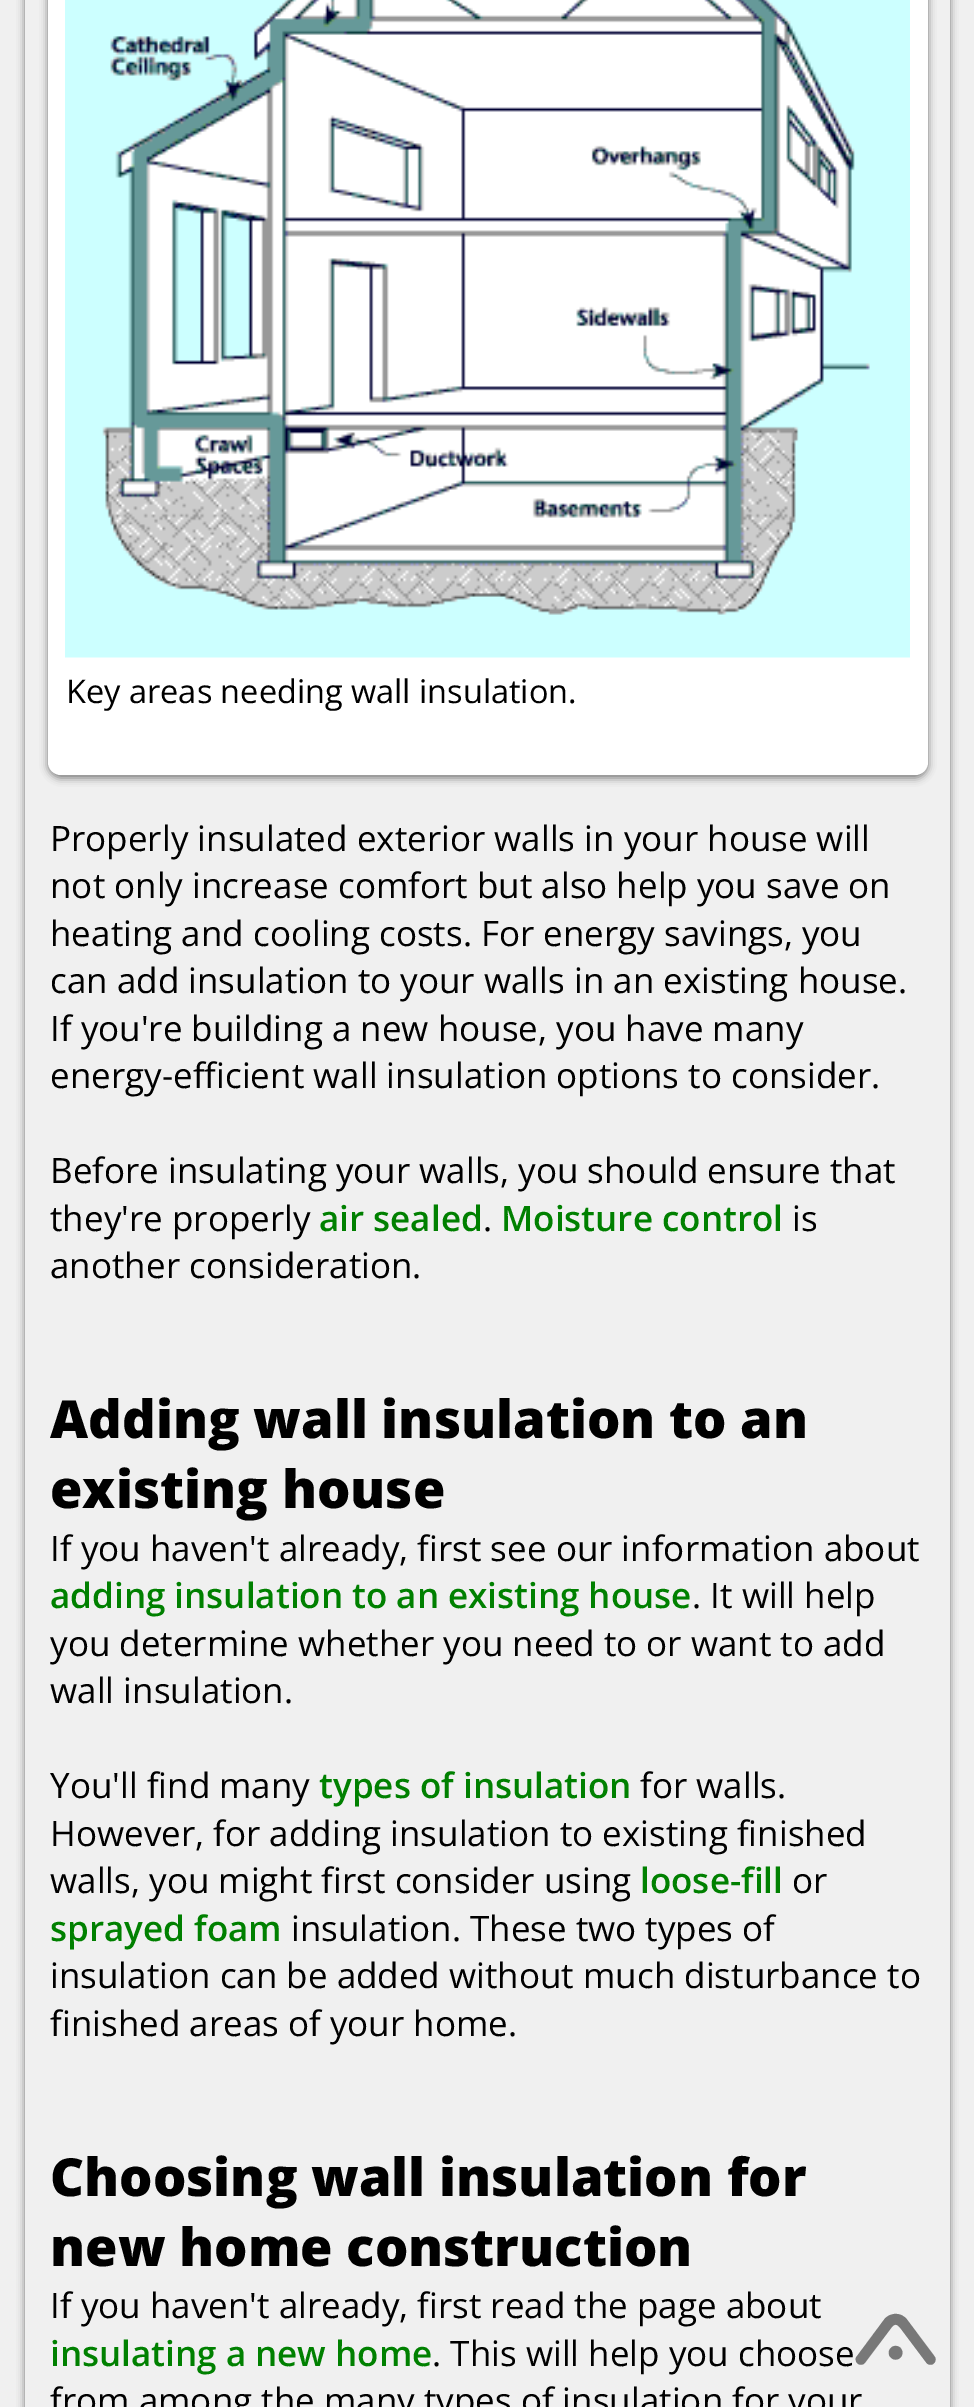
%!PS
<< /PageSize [974 2407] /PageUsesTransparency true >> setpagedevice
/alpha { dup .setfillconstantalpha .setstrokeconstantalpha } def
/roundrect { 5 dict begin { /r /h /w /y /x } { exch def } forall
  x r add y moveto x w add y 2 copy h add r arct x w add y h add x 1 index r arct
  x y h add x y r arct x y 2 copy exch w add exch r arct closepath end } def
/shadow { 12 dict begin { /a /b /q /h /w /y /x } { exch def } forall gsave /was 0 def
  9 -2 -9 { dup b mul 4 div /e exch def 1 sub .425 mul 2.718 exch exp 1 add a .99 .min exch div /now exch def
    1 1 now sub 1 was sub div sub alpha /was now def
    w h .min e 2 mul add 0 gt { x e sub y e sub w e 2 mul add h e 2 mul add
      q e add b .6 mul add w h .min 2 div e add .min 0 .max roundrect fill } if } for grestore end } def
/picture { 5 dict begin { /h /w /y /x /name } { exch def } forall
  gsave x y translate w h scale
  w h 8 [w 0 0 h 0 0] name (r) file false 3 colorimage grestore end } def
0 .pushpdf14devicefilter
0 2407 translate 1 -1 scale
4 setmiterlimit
0.941 setgray
0 0 974 2407 rectfill
gsave
newpath 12 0 moveto 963 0 lineto 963 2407 lineto 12 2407 lineto closepath 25 -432 moveto 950 -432 lineto 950 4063 lineto 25 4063 lineto closepath eoclip newpath
0 setgray
25 -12 925 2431 0 4 0.5 shadow
grestore
0 setgray
48 -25 880 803 13 4 0.5 shadow
1 setgray
48 -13 880 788 13 roundrect fill
(img1.rgb) 65 0 845 658 picture
/OpenSans-Regular [32.5 0 0 -32.5 0 0] selectfont
0 setgray
66 703 moveto (Key areas needing wall insulation.) show
/OpenSans-Regular [35 0 0 -35 0 0] selectfont
50 851 moveto (Properly insulated exterior walls in your house will) show
50 898 moveto (not only increase comfort but also help you save on) show
50 946 moveto (heating and cooling costs. For energy savings, you) show
50 993 moveto (can add insulation to your walls in an existing house.) show
50 1041 moveto (If you're building a new house, you have many) show
50 1088 moveto (energy-efficient wall insulation options to consider.) show
50 1183 moveto (Before insulating your walls, you should ensure that) show
50 1231 moveto (they're properly) show
/OpenSans-SemiBold [35 0 0 -35 0 0] selectfont
0 0.502 0 setrgbcolor
319 1231 moveto (air sealed) show
/OpenSans-Regular [35 0 0 -35 0 0] selectfont
0 setgray
483 1231 moveto (.) show
/OpenSans-SemiBold [35 0 0 -35 0 0] selectfont
0 0.502 0 setrgbcolor
501 1231 moveto (Moisture control) show
/OpenSans-Regular [35 0 0 -35 0 0] selectfont
0 setgray
792 1231 moveto (is) show
50 1278 moveto (another consideration.) show
/OpenSans-ExtraBold [52.5 0 0 -52.5 0 0] selectfont
50 1438 moveto (Adding wall insulation to an) show
50 1508 moveto (existing house) show
/OpenSans-Regular [35 0 0 -35 0 0] selectfont
50 1561 moveto (If you haven't already, first see our information about) show
/OpenSans-SemiBold [35 0 0 -35 0 0] selectfont
0 0.502 0 setrgbcolor
50 1608 moveto (adding insulation to an existing house) show
/OpenSans-Regular [35 0 0 -35 0 0] selectfont
0 setgray
692 1608 moveto (. It will help) show
50 1656 moveto (you determine whether you need to or want to add) show
50 1703 moveto (wall insulation.) show
50 1798 moveto (You'll find many) show
/OpenSans-SemiBold [35 0 0 -35 0 0] selectfont
0 0.502 0 setrgbcolor
319 1798 moveto (types of insulation) show
/OpenSans-Regular [35 0 0 -35 0 0] selectfont
0 setgray
640 1798 moveto (for walls.) show
50 1846 moveto (However, for adding insulation to existing finished) show
50 1893 moveto (walls, you might first consider using) show
/OpenSans-SemiBold [35 0 0 -35 0 0] selectfont
0 0.502 0 setrgbcolor
640 1893 moveto (loose-fill) show
/OpenSans-Regular [35 0 0 -35 0 0] selectfont
0 setgray
792 1893 moveto (or) show
/OpenSans-SemiBold [35 0 0 -35 0 0] selectfont
0 0.502 0 setrgbcolor
50 1941 moveto (sprayed foam) show
/OpenSans-Regular [35 0 0 -35 0 0] selectfont
0 setgray
291 1941 moveto (insulation. These two types of) show
50 1988 moveto (insulation can be added without much disturbance to) show
50 2036 moveto (finished areas of your home.) show
/OpenSans-ExtraBold [52.5 0 0 -52.5 0 0] selectfont
50 2196 moveto (Choosing wall insulation for) show
50 2266 moveto (new home construction) show
/OpenSans-Regular [35 0 0 -35 0 0] selectfont
50 2318 moveto (If you haven't already, first read the page about) show
/OpenSans-SemiBold [35 0 0 -35 0 0] selectfont
0 0.502 0 setrgbcolor
50 2366 moveto (insulating a new home) show
/OpenSans-Regular [35 0 0 -35 0 0] selectfont
0 setgray
432 2366 moveto (. This will help you choose) show
50 2413 moveto (from among the many types of insulation for your) show
/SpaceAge-Regular [112 0 0 -112 0 0] selectfont
0.471 setgray
850 2373 moveto (A) show
.poppdf14devicefilter showpage
